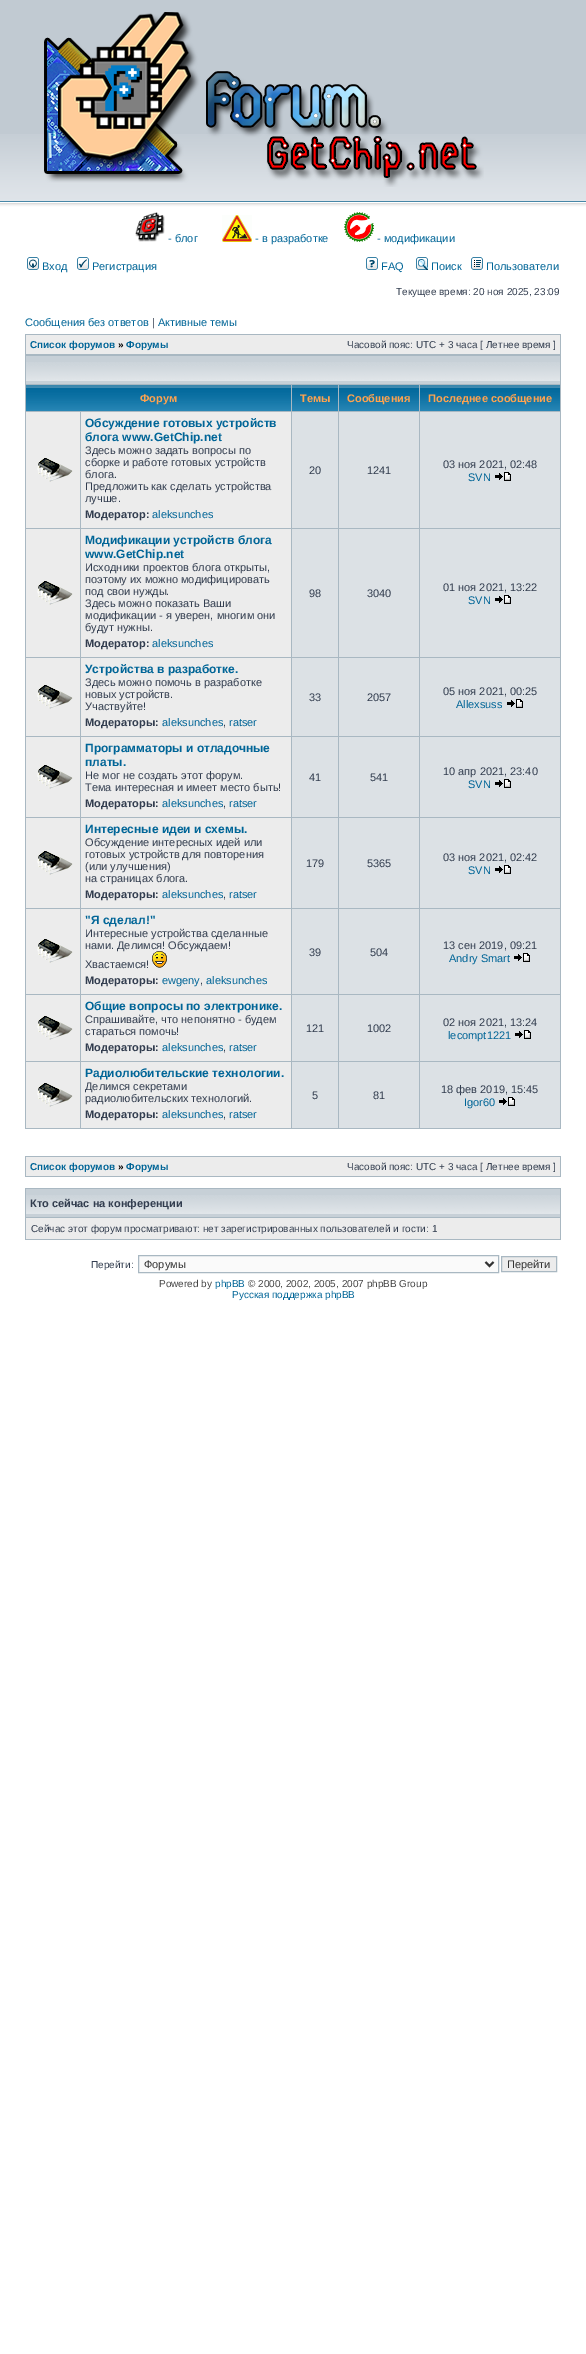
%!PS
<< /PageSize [586 2354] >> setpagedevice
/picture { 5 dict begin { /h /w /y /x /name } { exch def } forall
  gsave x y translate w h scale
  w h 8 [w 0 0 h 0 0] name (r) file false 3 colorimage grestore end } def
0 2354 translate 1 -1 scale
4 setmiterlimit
1 setgray
0 0 586 2354 rectfill
0.757 0.792 0.824 setrgbcolor
0 0 586 134 rectfill
(img1.rgb) 0 134 586 78 picture
(img2.rgb) 44 12 440 175 picture
(img3.rgb) 135 212 30 30 picture
/LiberationSans-Regular [11 0 0 -11 0 0] selectfont
0 0.396 0.592 setrgbcolor
168 242 moveto (- блог) show
(img4.rgb) 222 215 30 27 picture
255 242 moveto (- в разработке) show
(img5.rgb) 344 212 30 30 picture
377 242 moveto (- модификации) show
(img6.rgb) 27 257 12 13 picture
42 270 moveto (Вход) show
(img7.rgb) 77 257 12 13 picture
92 270 moveto (Регистрация) show
(img8.rgb) 366 257 12 13 picture
381 270 moveto (FAQ) show
(img9.rgb) 416 257 12 13 picture
431 270 moveto (Поиск) show
(img10.rgb) 471 257 12 13 picture
486 270 moveto (Пользователи) show
/LiberationSans-Regular [10 0 0 -10 0 0] selectfont
0.196 0.239 0.31 setrgbcolor
396 295 moveto (Текущее время: 20 ноя 2025, 23:09) show
/LiberationSans-Regular [11 0 0 -11 0 0] selectfont
0 0.396 0.592 setrgbcolor
25 326 moveto (Сообщения без ответов) show
0.196 0.239 0.31 setrgbcolor
152 326 moveto (|) show
0 0.396 0.592 setrgbcolor
158 326 moveto (Активные темы) show
0.663 0.722 0.761 setrgbcolor
25 334 536 795 rectfill
0.925 setgray
26 335 534 19 rectfill
/LiberationSans-Bold [10 0 0 -10 0 0] selectfont
0 0.396 0.592 setrgbcolor
30 348 moveto (Список форумов) show
0 setgray
118 348 moveto (») show
0 0.396 0.592 setrgbcolor
126 348 moveto (Форумы) show
/LiberationSans-Regular [10 0 0 -10 0 0] selectfont
0.196 0.239 0.31 setrgbcolor
347 348 moveto (Часовой пояс: UTC + 3 часа [ Летнее время ]) show
0.78 0.816 0.843 setrgbcolor
26 356 534 28 rectfill
(img11.rgb) 26 362 534 19 picture
(img12.rgb) 26 385 265 26 picture
/LiberationSans-Bold [11 0 0 -11 0 0] selectfont
1 0.639 0.31 setrgbcolor
140 402 moveto (Форум) show
(img13.rgb) 292 385 46 26 picture
300 402 moveto (Темы) show
(img14.rgb) 339 385 80 26 picture
347 402 moveto (Сообщения) show
(img15.rgb) 420 385 140 26 picture
428 402 moveto (Последнее сообщение) show
0.925 setgray
26 412 54 116 rectfill
(img16.rgb) 37 458 36 24 picture
81 412 210 116 rectfill
/LiberationSans-Bold [12 0 0 -12 0 0] selectfont
0 0.396 0.592 setrgbcolor
85 427 moveto (Обсуждение готовых устройств) show
85 441 moveto (блога www.GetChip.net) show
/LiberationSans-Regular [11 0 0 -11 0 0] selectfont
0.196 0.239 0.31 setrgbcolor
85 454 moveto (Здесь можно задать вопросы по) show
85 466 moveto (сборке и работе готовых устройств) show
85 478 moveto (блога.) show
85 490 moveto (Предложить как сделать устройства) show
85 502 moveto (лучше.) show
/LiberationSans-Bold [11 0 0 -11 0 0] selectfont
85 518 moveto (Модератор:) show
/LiberationSans-Regular [11 0 0 -11 0 0] selectfont
0 0.396 0.592 setrgbcolor
152 518 moveto (aleksunches) show
0.863 0.882 0.898 setrgbcolor
292 412 46 116 rectfill
0.196 0.239 0.31 setrgbcolor
309 474 moveto (20) show
0.863 0.882 0.898 setrgbcolor
339 412 80 116 rectfill
0.196 0.239 0.31 setrgbcolor
367 474 moveto (1241) show
0.863 0.882 0.898 setrgbcolor
420 412 140 116 rectfill
0.196 0.239 0.31 setrgbcolor
443 468 moveto (03 ноя 2021, 02:48) show
0 0.396 0.592 setrgbcolor
468 481 moveto (SVN) show
(img17.rgb) 495 472 16 9 picture
0.925 setgray
26 529 54 128 rectfill
(img16.rgb) 37 581 36 24 picture
81 529 210 128 rectfill
/LiberationSans-Bold [12 0 0 -12 0 0] selectfont
0 0.396 0.592 setrgbcolor
85 544 moveto (Модификации устройств блога) show
85 558 moveto (www.GetChip.net) show
/LiberationSans-Regular [11 0 0 -11 0 0] selectfont
0.196 0.239 0.31 setrgbcolor
85 571 moveto (Исходники проектов блога открыты,) show
85 583 moveto (поэтому их можно модифицировать) show
85 595 moveto (под свои нужды.) show
85 607 moveto (Здесь можно показать Ваши) show
85 619 moveto (модификации - я уверен, многим они) show
85 631 moveto (будут нужны.) show
/LiberationSans-Bold [11 0 0 -11 0 0] selectfont
85 647 moveto (Модератор:) show
/LiberationSans-Regular [11 0 0 -11 0 0] selectfont
0 0.396 0.592 setrgbcolor
152 647 moveto (aleksunches) show
0.863 0.882 0.898 setrgbcolor
292 529 46 128 rectfill
0.196 0.239 0.31 setrgbcolor
309 597 moveto (98) show
0.863 0.882 0.898 setrgbcolor
339 529 80 128 rectfill
0.196 0.239 0.31 setrgbcolor
367 597 moveto (3040) show
0.863 0.882 0.898 setrgbcolor
420 529 140 128 rectfill
0.196 0.239 0.31 setrgbcolor
443 591 moveto (01 ноя 2021, 13:22) show
0 0.396 0.592 setrgbcolor
468 604 moveto (SVN) show
(img17.rgb) 495 595 16 9 picture
0.925 setgray
26 658 54 78 rectfill
(img16.rgb) 37 685 36 24 picture
81 658 210 78 rectfill
/LiberationSans-Bold [12 0 0 -12 0 0] selectfont
0 0.396 0.592 setrgbcolor
85 673 moveto (Устройства в разработке.) show
/LiberationSans-Regular [11 0 0 -11 0 0] selectfont
0.196 0.239 0.31 setrgbcolor
85 686 moveto (Здесь можно помочь в разработке) show
85 698 moveto (новых устройств.) show
85 710 moveto (Участвуйте!) show
/LiberationSans-Bold [11 0 0 -11 0 0] selectfont
85 726 moveto (Модераторы:) show
/LiberationSans-Regular [11 0 0 -11 0 0] selectfont
0 0.396 0.592 setrgbcolor
162 726 moveto (aleksunches) show
0.196 0.239 0.31 setrgbcolor
223 726 moveto (,) show
0 0.396 0.592 setrgbcolor
229 726 moveto (ratser) show
0.863 0.882 0.898 setrgbcolor
292 658 46 78 rectfill
0.196 0.239 0.31 setrgbcolor
309 701 moveto (33) show
0.863 0.882 0.898 setrgbcolor
339 658 80 78 rectfill
0.196 0.239 0.31 setrgbcolor
367 701 moveto (2057) show
0.863 0.882 0.898 setrgbcolor
420 658 140 78 rectfill
0.196 0.239 0.31 setrgbcolor
443 695 moveto (05 ноя 2021, 00:25) show
0 0.396 0.592 setrgbcolor
456 708 moveto (Allexsuss) show
(img17.rgb) 507 699 16 9 picture
0.925 setgray
26 737 54 80 rectfill
(img16.rgb) 37 765 36 24 picture
81 737 210 80 rectfill
/LiberationSans-Bold [12 0 0 -12 0 0] selectfont
0 0.396 0.592 setrgbcolor
85 752 moveto (Программаторы и отладочные) show
85 766 moveto (платы.) show
/LiberationSans-Regular [11 0 0 -11 0 0] selectfont
0.196 0.239 0.31 setrgbcolor
85 779 moveto (Не мог не создать этот форум.) show
85 791 moveto (Тема интересная и имеет место быть!) show
/LiberationSans-Bold [11 0 0 -11 0 0] selectfont
85 807 moveto (Модераторы:) show
/LiberationSans-Regular [11 0 0 -11 0 0] selectfont
0 0.396 0.592 setrgbcolor
162 807 moveto (aleksunches) show
0.196 0.239 0.31 setrgbcolor
223 807 moveto (,) show
0 0.396 0.592 setrgbcolor
229 807 moveto (ratser) show
0.863 0.882 0.898 setrgbcolor
292 737 46 80 rectfill
0.196 0.239 0.31 setrgbcolor
309 781 moveto (41) show
0.863 0.882 0.898 setrgbcolor
339 737 80 80 rectfill
0.196 0.239 0.31 setrgbcolor
370 781 moveto (541) show
0.863 0.882 0.898 setrgbcolor
420 737 140 80 rectfill
0.196 0.239 0.31 setrgbcolor
443 775 moveto (10 апр 2021, 23:40) show
0 0.396 0.592 setrgbcolor
468 788 moveto (SVN) show
(img17.rgb) 495 779 16 9 picture
0.925 setgray
26 818 54 90 rectfill
(img16.rgb) 37 851 36 24 picture
81 818 210 90 rectfill
/LiberationSans-Bold [12 0 0 -12 0 0] selectfont
0 0.396 0.592 setrgbcolor
85 833 moveto (Интересные идеи и схемы.) show
/LiberationSans-Regular [11 0 0 -11 0 0] selectfont
0.196 0.239 0.31 setrgbcolor
85 846 moveto (Обсуждение интересных идей или) show
85 858 moveto (готовых устройств для повторения) show
85 870 moveto (\(или улучшения\)) show
85 882 moveto (на страницах блога.) show
/LiberationSans-Bold [11 0 0 -11 0 0] selectfont
85 898 moveto (Модераторы:) show
/LiberationSans-Regular [11 0 0 -11 0 0] selectfont
0 0.396 0.592 setrgbcolor
162 898 moveto (aleksunches) show
0.196 0.239 0.31 setrgbcolor
223 898 moveto (,) show
0 0.396 0.592 setrgbcolor
229 898 moveto (ratser) show
0.863 0.882 0.898 setrgbcolor
292 818 46 90 rectfill
0.196 0.239 0.31 setrgbcolor
306 867 moveto (179) show
0.863 0.882 0.898 setrgbcolor
339 818 80 90 rectfill
0.196 0.239 0.31 setrgbcolor
367 867 moveto (5365) show
0.863 0.882 0.898 setrgbcolor
420 818 140 90 rectfill
0.196 0.239 0.31 setrgbcolor
443 861 moveto (03 ноя 2021, 02:42) show
0 0.396 0.592 setrgbcolor
468 874 moveto (SVN) show
(img17.rgb) 495 865 16 9 picture
0.925 setgray
26 909 54 85 rectfill
(img16.rgb) 37 939 36 24 picture
81 909 210 85 rectfill
/LiberationSans-Bold [12 0 0 -12 0 0] selectfont
0 0.396 0.592 setrgbcolor
85 924 moveto ("Я сделал!") show
/LiberationSans-Regular [11 0 0 -11 0 0] selectfont
0.196 0.239 0.31 setrgbcolor
85 937 moveto (Интересные устройства сделанные) show
85 949 moveto (нами. Делимся! Обсуждаем!) show
85 968 moveto (Хвастаемся!) show
(img18.rgb) 152 951 15 17 picture
/LiberationSans-Bold [11 0 0 -11 0 0] selectfont
85 984 moveto (Модераторы:) show
/LiberationSans-Regular [11 0 0 -11 0 0] selectfont
0 0.396 0.592 setrgbcolor
162 984 moveto (ewgeny) show
0.196 0.239 0.31 setrgbcolor
200 984 moveto (,) show
0 0.396 0.592 setrgbcolor
206 984 moveto (aleksunches) show
0.863 0.882 0.898 setrgbcolor
292 909 46 85 rectfill
0.196 0.239 0.31 setrgbcolor
309 956 moveto (39) show
0.863 0.882 0.898 setrgbcolor
339 909 80 85 rectfill
0.196 0.239 0.31 setrgbcolor
370 956 moveto (504) show
0.863 0.882 0.898 setrgbcolor
420 909 140 85 rectfill
0.196 0.239 0.31 setrgbcolor
443 949 moveto (13 сен 2019, 09:21) show
0 0.396 0.592 setrgbcolor
449 962 moveto (Andry Smart) show
(img17.rgb) 514 953 16 9 picture
0.925 setgray
26 995 54 66 rectfill
(img16.rgb) 37 1016 36 24 picture
81 995 210 66 rectfill
/LiberationSans-Bold [12 0 0 -12 0 0] selectfont
0 0.396 0.592 setrgbcolor
85 1010 moveto (Общие вопросы по электронике.) show
/LiberationSans-Regular [11 0 0 -11 0 0] selectfont
0.196 0.239 0.31 setrgbcolor
85 1023 moveto (Спрашивайте, что непонятно - будем) show
85 1035 moveto (стараться помочь!) show
/LiberationSans-Bold [11 0 0 -11 0 0] selectfont
85 1051 moveto (Модераторы:) show
/LiberationSans-Regular [11 0 0 -11 0 0] selectfont
0 0.396 0.592 setrgbcolor
162 1051 moveto (aleksunches) show
0.196 0.239 0.31 setrgbcolor
223 1051 moveto (,) show
0 0.396 0.592 setrgbcolor
229 1051 moveto (ratser) show
0.863 0.882 0.898 setrgbcolor
292 995 46 66 rectfill
0.196 0.239 0.31 setrgbcolor
306 1032 moveto (121) show
0.863 0.882 0.898 setrgbcolor
339 995 80 66 rectfill
0.196 0.239 0.31 setrgbcolor
367 1032 moveto (1002) show
0.863 0.882 0.898 setrgbcolor
420 995 140 66 rectfill
0.196 0.239 0.31 setrgbcolor
443 1026 moveto (02 ноя 2021, 13:24) show
0 0.396 0.592 setrgbcolor
448 1039 moveto (lecompt1221) show
(img17.rgb) 515 1030 16 9 picture
0.925 setgray
26 1062 54 66 rectfill
(img16.rgb) 37 1083 36 24 picture
81 1062 210 66 rectfill
/LiberationSans-Bold [12 0 0 -12 0 0] selectfont
0 0.396 0.592 setrgbcolor
85 1077 moveto (Радиолюбительские технологии.) show
/LiberationSans-Regular [11 0 0 -11 0 0] selectfont
0.196 0.239 0.31 setrgbcolor
85 1090 moveto (Делимся секретами) show
85 1102 moveto (радиолюбительских технологий.) show
/LiberationSans-Bold [11 0 0 -11 0 0] selectfont
85 1118 moveto (Модераторы:) show
/LiberationSans-Regular [11 0 0 -11 0 0] selectfont
0 0.396 0.592 setrgbcolor
162 1118 moveto (aleksunches) show
0.196 0.239 0.31 setrgbcolor
223 1118 moveto (,) show
0 0.396 0.592 setrgbcolor
229 1118 moveto (ratser) show
0.863 0.882 0.898 setrgbcolor
292 1062 46 66 rectfill
0.196 0.239 0.31 setrgbcolor
312 1099 moveto (5) show
0.863 0.882 0.898 setrgbcolor
339 1062 80 66 rectfill
0.196 0.239 0.31 setrgbcolor
373 1099 moveto (81) show
0.863 0.882 0.898 setrgbcolor
420 1062 140 66 rectfill
0.196 0.239 0.31 setrgbcolor
441 1093 moveto (18 фев 2019, 15:45) show
0 0.396 0.592 setrgbcolor
464 1106 moveto (Igor60) show
(img17.rgb) 499 1097 16 9 picture
0.663 0.722 0.761 setrgbcolor
25 1156 536 21 rectfill
0.925 setgray
26 1157 534 19 rectfill
/LiberationSans-Bold [10 0 0 -10 0 0] selectfont
0 0.396 0.592 setrgbcolor
30 1170 moveto (Список форумов) show
0 setgray
118 1170 moveto (») show
0 0.396 0.592 setrgbcolor
126 1170 moveto (Форумы) show
/LiberationSans-Regular [10 0 0 -10 0 0] selectfont
0.196 0.239 0.31 setrgbcolor
347 1170 moveto (Часовой пояс: UTC + 3 часа [ Летнее время ]) show
0.663 0.722 0.761 setrgbcolor
25 1188 536 52 rectfill
0.78 0.816 0.843 setrgbcolor
26 1189 534 28 rectfill
(img11.rgb) 26 1195 534 19 picture
/LiberationSans-Bold [11 0 0 -11 0 0] selectfont
0.196 0.239 0.31 setrgbcolor
30 1207 moveto (Кто сейчас на конференции) show
0.925 setgray
26 1218 534 21 rectfill
/LiberationSans-Regular [10 0 0 -10 0 0] selectfont
0.196 0.239 0.31 setrgbcolor
31 1232 moveto (Сейчас этот форум просматривают: нет зарегистрированных пользователей и гости: 1) show
91 1268 moveto (Перейти:) show
0.98 setgray
newpath 138.5 1255.5 moveto 498.5 1255.5 lineto 498.5 1272.5 lineto 138.5 1272.5 lineto closepath gsave fill grestore
0.663 0.722 0.761 setrgbcolor
stroke
0.2 setgray
2 setlinewidth
newpath 485.5 1262 moveto 489.5 1266 lineto 493.5 1262 lineto stroke
/LiberationSans-Regular [11 0 0 -11 0 0] selectfont
144 1268 moveto (Форумы) show
0.925 setgray
newpath 501.5 1256.5 moveto 556.5 1256.5 lineto 556.5 1271.5 lineto 501.5 1271.5 lineto closepath gsave fill grestore
0.663 0.722 0.761 setrgbcolor
1 setlinewidth
stroke
0.2 setgray
507 1268 moveto (Перейти) show
/LiberationSans-Regular [10 0 0 -10 0 0] selectfont
0.267 setgray
159 1287 moveto (Powered by) show
0 0.396 0.592 setrgbcolor
215 1287 moveto (phpBB) show
0.267 setgray
248 1287 moveto (© 2000, 2002, 2005, 2007 phpBB Group) show
0 0.396 0.592 setrgbcolor
232 1298 moveto (Русская поддержка phpBB) show
showpage
